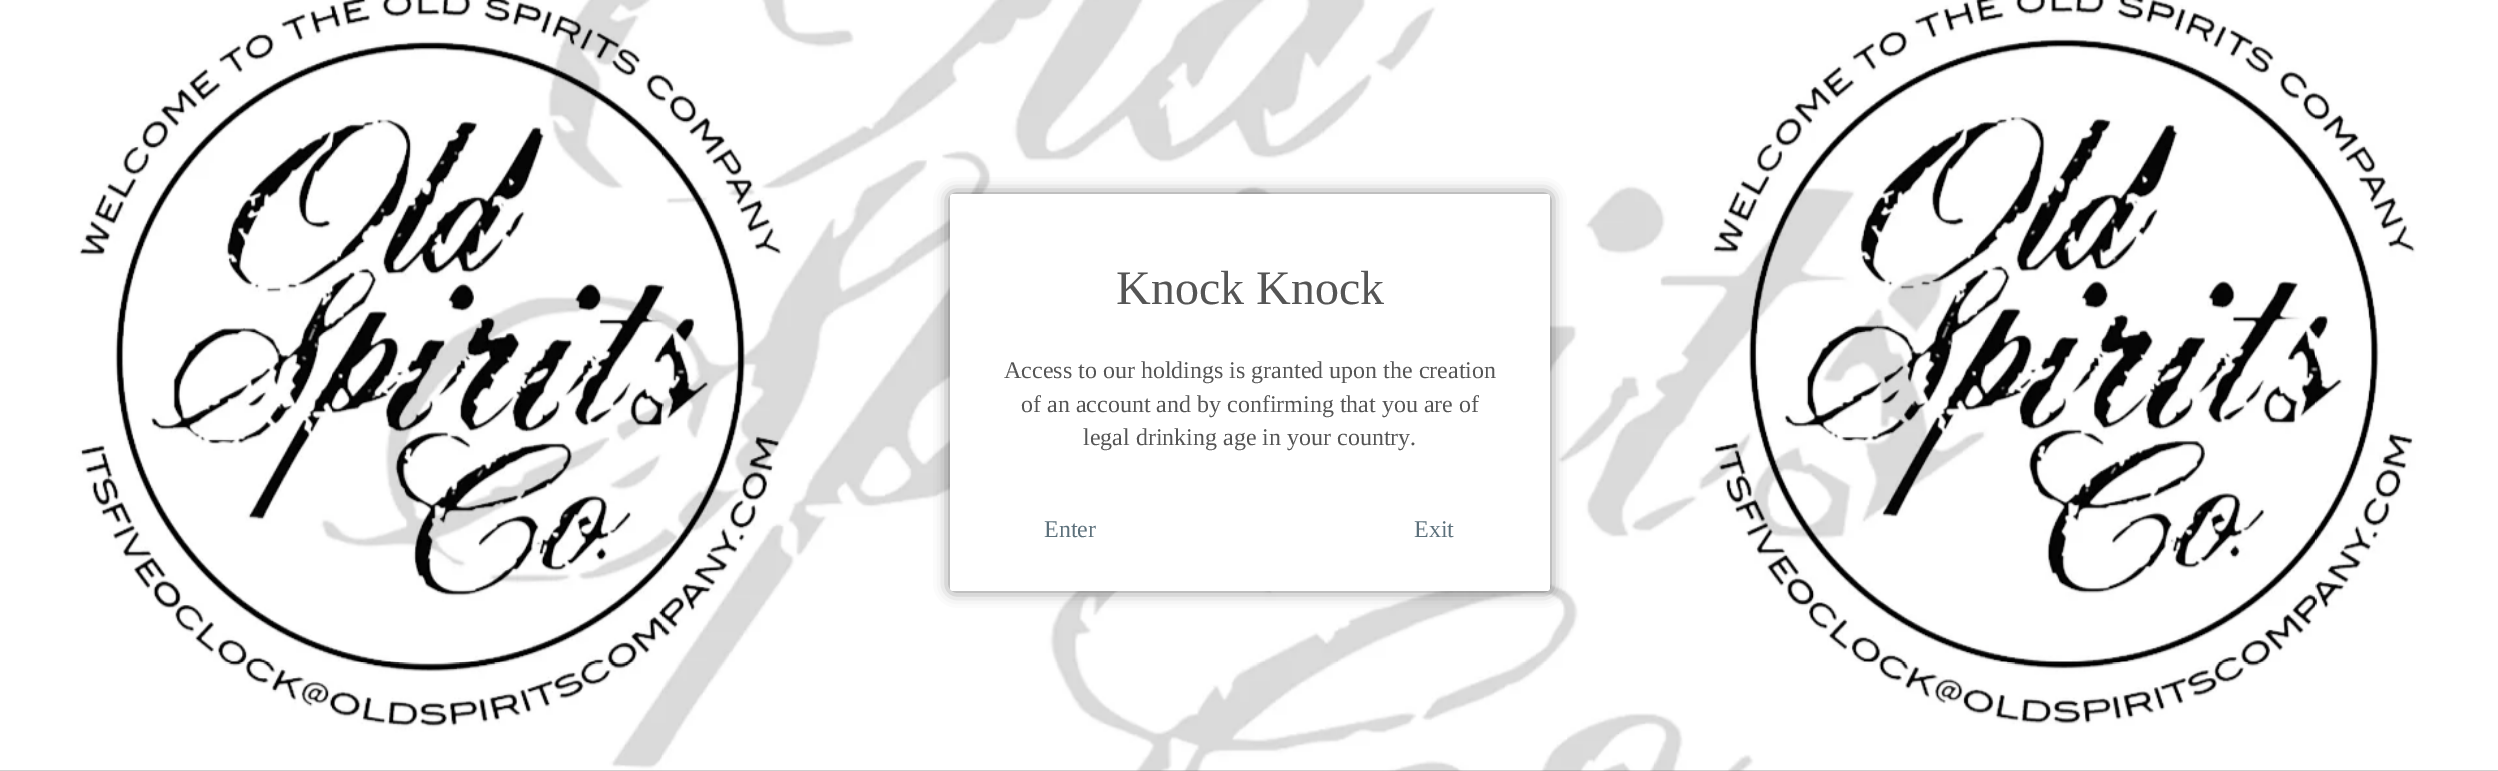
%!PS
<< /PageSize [2498 771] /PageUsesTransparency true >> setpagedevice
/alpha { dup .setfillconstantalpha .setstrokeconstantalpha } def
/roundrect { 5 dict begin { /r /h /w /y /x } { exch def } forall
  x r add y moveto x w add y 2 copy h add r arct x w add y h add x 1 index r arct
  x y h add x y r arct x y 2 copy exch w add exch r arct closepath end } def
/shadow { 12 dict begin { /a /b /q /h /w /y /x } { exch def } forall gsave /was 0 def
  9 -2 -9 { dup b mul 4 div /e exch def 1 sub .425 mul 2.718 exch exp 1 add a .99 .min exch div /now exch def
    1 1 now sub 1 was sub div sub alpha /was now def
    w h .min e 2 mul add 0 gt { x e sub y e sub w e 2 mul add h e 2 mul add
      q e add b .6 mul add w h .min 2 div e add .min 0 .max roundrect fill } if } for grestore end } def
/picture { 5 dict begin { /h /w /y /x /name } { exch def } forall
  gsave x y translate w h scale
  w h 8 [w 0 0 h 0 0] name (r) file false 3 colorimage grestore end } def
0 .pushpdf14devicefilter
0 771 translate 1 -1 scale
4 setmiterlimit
1 setgray
0 0 2498 771 rectfill
(img1.rgb) 0 0 2498 771 picture
0 setgray
950 194 600 397 3 7.5 0.5 shadow
1 setgray
950 194 600 397 3 roundrect fill
/LiberationSerif-Regular [48 0 0 -48 0 0] selectfont
0.333 setgray
1116 304 moveto (Knock Knock) show
/LiberationSerif-Regular [24 0 0 -24 0 0] selectfont
1004 378 moveto (Access to our holdings is granted upon the creation) show
1021 412 moveto (of an account and by confirming that you are of) show
1083 445 moveto (legal drinking age in your country.) show
0.361 0.439 0.482 setrgbcolor
1044 537 moveto (Enter) show
1414 537 moveto (Exit) show
.poppdf14devicefilter showpage
